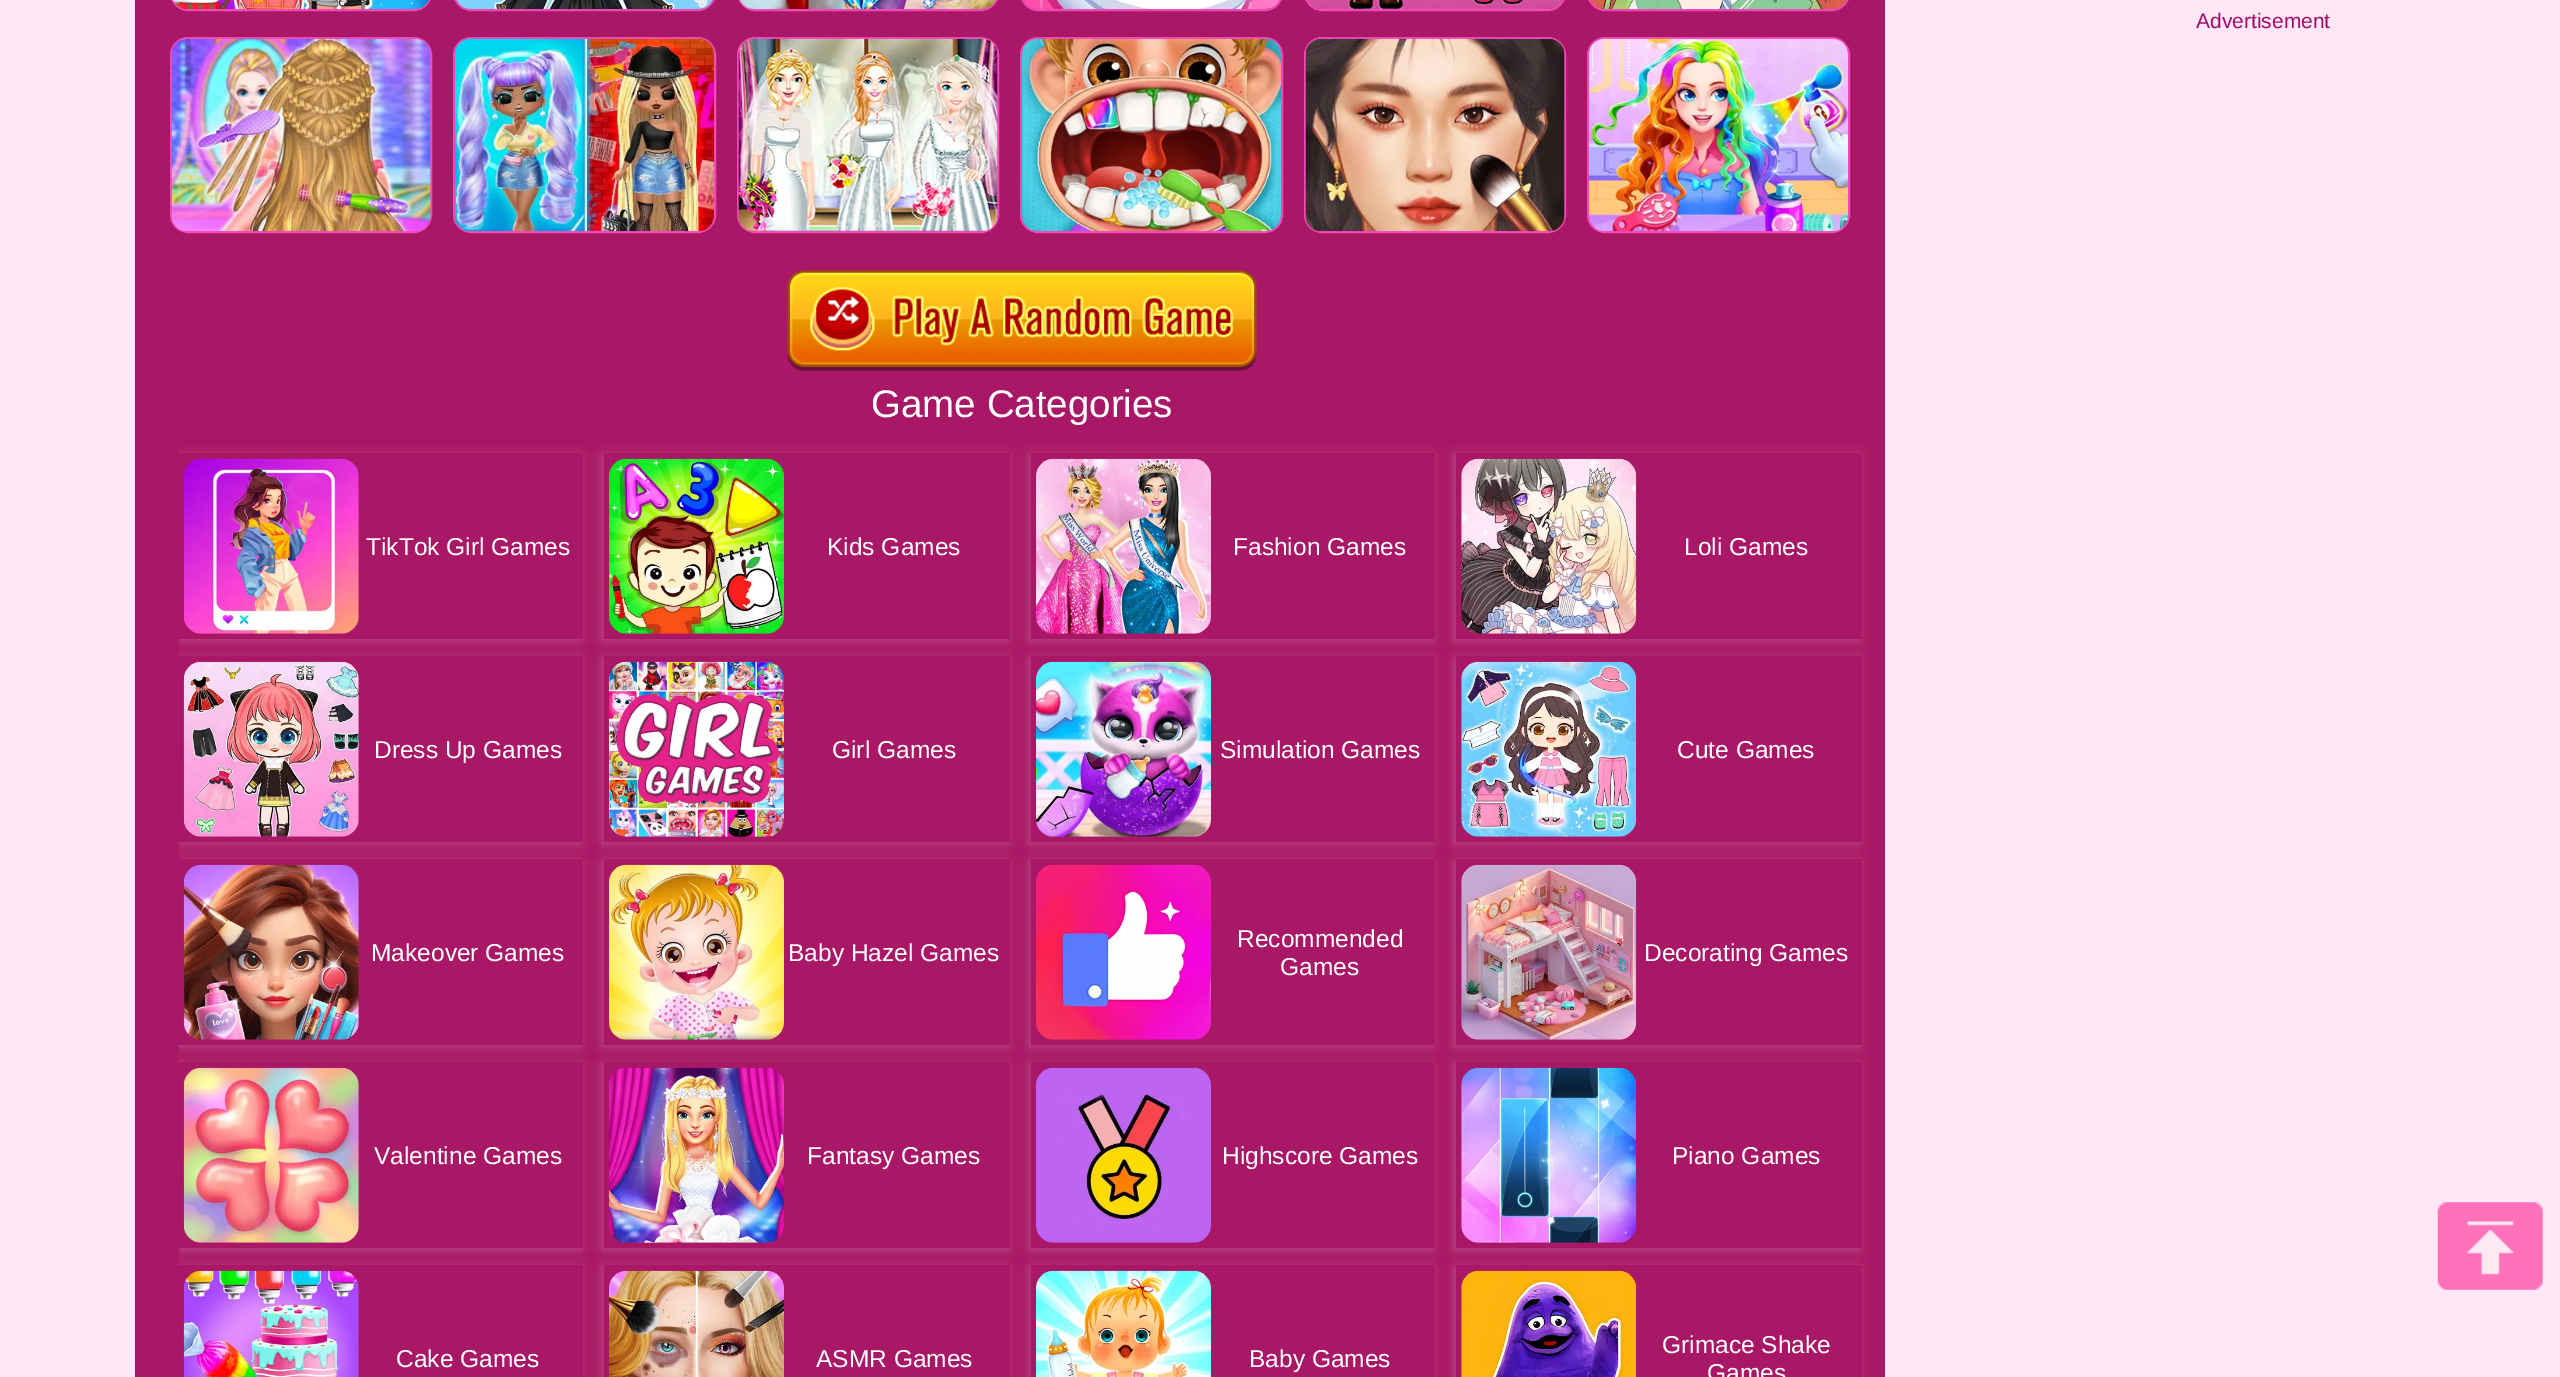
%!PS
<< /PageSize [2560 1377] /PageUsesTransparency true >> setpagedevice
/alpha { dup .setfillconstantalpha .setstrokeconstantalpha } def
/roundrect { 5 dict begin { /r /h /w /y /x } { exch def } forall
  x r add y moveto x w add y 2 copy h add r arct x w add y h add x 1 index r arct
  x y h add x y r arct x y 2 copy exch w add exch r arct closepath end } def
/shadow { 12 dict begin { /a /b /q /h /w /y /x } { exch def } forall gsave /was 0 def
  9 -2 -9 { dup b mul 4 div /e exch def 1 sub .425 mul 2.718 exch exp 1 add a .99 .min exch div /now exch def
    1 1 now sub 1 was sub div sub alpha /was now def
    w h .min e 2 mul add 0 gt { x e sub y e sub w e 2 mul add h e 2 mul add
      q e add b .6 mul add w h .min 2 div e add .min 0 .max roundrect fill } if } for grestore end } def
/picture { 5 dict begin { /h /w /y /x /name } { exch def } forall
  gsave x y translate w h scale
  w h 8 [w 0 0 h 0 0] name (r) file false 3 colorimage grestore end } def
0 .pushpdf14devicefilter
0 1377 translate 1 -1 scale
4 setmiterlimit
1 0.906 0.961 setrgbcolor
0 0 2560 1377 rectfill
/LiberationSans-Regular [21 0 0 -21 0 0] selectfont
0.627 0.039 0.424 setrgbcolor
2196 28 moveto (Advertisement) show
0.663 0.094 0.4 setrgbcolor
135 0 1750 1377 rectfill
0.957 0.282 0.722 setrgbcolor
2 setlinewidth
171 -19 260 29 17 roundrect stroke
(img1.rgb) 173 0 256 9 picture
454 -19 261 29 17 roundrect stroke
(img2.rgb) 456 0 257 9 picture
738 -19 260 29 17 roundrect stroke
(img3.rgb) 740 0 256 9 picture
1021 -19 261 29 17 roundrect stroke
(img4.rgb) 1023 0 257 9 picture
1305 -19 260 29 17 roundrect stroke
(img5.rgb) 1307 0 256 9 picture
1588 -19 261 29 17 roundrect stroke
(img6.rgb) 1590 0 257 9 picture
171 38 260 194 17 roundrect stroke
(img7.rgb) 171 38 260 194 picture
454 38 261 194 17 roundrect stroke
(img8.rgb) 455 38 259 194 picture
738 38 260 194 17 roundrect stroke
(img9.rgb) 738 38 260 194 picture
1021 38 261 194 17 roundrect stroke
(img10.rgb) 1022 38 259 194 picture
1305 38 260 194 17 roundrect stroke
(img11.rgb) 1305 38 260 194 picture
1588 38 261 194 17 roundrect stroke
(img12.rgb) 1589 38 259 194 picture
(img13.rgb) 787 270 470 101 picture
/LiberationSans-Regular [38.5 0 0 -38.5 0 0] selectfont
1 setgray
871 417 moveto (Game Categories) show
gsave
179 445 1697 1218 rectclip
newpath 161 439 moveto 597 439 lineto 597 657 lineto 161 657 lineto closepath 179 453 moveto 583 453 lineto 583 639 lineto 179 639 lineto closepath eoclip newpath
177 455 404 186 0 5 0.2 shadow
grestore
(img14.rgb) 183 458 176 176 picture
/LiberationSans-Regular [24.5 0 0 -24.5 0 0] selectfont
366 555 moveto (TikTok Girl Games) show
gsave
newpath 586 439 moveto 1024 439 lineto 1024 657 lineto 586 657 lineto closepath 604 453 moveto 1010 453 lineto 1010 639 lineto 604 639 lineto closepath eoclip newpath
602 455 406 186 0 5 0.2 shadow
grestore
(img15.rgb) 609 458 175 176 picture
827 555 moveto (Kids Games) show
gsave
newpath 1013 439 moveto 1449 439 lineto 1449 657 lineto 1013 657 lineto closepath 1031 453 moveto 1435 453 lineto 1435 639 lineto 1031 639 lineto closepath eoclip newpath
1029 455 404 186 0 5 0.2 shadow
grestore
(img16.rgb) 1036 458 175 176 picture
1233 555 moveto (Fashion Games) show
gsave
newpath 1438 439 moveto 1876 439 lineto 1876 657 lineto 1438 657 lineto closepath 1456 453 moveto 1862 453 lineto 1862 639 lineto 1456 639 lineto closepath eoclip newpath
1454 455 406 186 0 5 0.2 shadow
grestore
(img17.rgb) 1461 458 176 176 picture
1684 555 moveto (Loli Games) show
gsave
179 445 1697 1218 rectclip
newpath 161 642 moveto 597 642 lineto 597 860 lineto 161 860 lineto closepath 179 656 moveto 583 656 lineto 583 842 lineto 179 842 lineto closepath eoclip newpath
177 658 404 186 0 5 0.2 shadow
grestore
(img18.rgb) 183 661 176 176 picture
374 758 moveto (Dress Up Games) show
gsave
newpath 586 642 moveto 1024 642 lineto 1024 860 lineto 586 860 lineto closepath 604 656 moveto 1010 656 lineto 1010 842 lineto 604 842 lineto closepath eoclip newpath
602 658 406 186 0 5 0.2 shadow
grestore
(img19.rgb) 609 661 175 176 picture
832 758 moveto (Girl Games) show
gsave
newpath 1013 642 moveto 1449 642 lineto 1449 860 lineto 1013 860 lineto closepath 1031 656 moveto 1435 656 lineto 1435 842 lineto 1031 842 lineto closepath eoclip newpath
1029 658 404 186 0 5 0.2 shadow
grestore
(img20.rgb) 1036 661 175 176 picture
1220 758 moveto (Simulation Games) show
gsave
newpath 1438 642 moveto 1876 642 lineto 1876 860 lineto 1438 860 lineto closepath 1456 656 moveto 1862 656 lineto 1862 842 lineto 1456 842 lineto closepath eoclip newpath
1454 658 406 186 0 5 0.2 shadow
grestore
(img21.rgb) 1461 661 176 176 picture
1677 758 moveto (Cute Games) show
gsave
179 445 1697 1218 rectclip
newpath 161 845 moveto 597 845 lineto 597 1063 lineto 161 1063 lineto closepath 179 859 moveto 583 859 lineto 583 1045 lineto 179 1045 lineto closepath eoclip newpath
177 861 404 186 0 5 0.2 shadow
grestore
(img22.rgb) 183 864 176 176 picture
371 961 moveto (Makeover Games) show
gsave
newpath 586 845 moveto 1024 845 lineto 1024 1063 lineto 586 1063 lineto closepath 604 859 moveto 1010 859 lineto 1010 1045 lineto 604 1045 lineto closepath eoclip newpath
602 861 406 186 0 5 0.2 shadow
grestore
(img23.rgb) 609 864 175 176 picture
788 961 moveto (Baby Hazel Games) show
gsave
newpath 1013 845 moveto 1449 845 lineto 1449 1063 lineto 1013 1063 lineto closepath 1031 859 moveto 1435 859 lineto 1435 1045 lineto 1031 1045 lineto closepath eoclip newpath
1029 861 404 186 0 5 0.2 shadow
grestore
(img24.rgb) 1036 864 175 176 picture
1237 947 moveto (Recommended) show
1280 975 moveto (Games) show
gsave
newpath 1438 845 moveto 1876 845 lineto 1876 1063 lineto 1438 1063 lineto closepath 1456 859 moveto 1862 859 lineto 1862 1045 lineto 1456 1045 lineto closepath eoclip newpath
1454 861 406 186 0 5 0.2 shadow
grestore
(img25.rgb) 1461 864 176 176 picture
1644 961 moveto (Decorating Games) show
gsave
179 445 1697 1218 rectclip
newpath 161 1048 moveto 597 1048 lineto 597 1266 lineto 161 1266 lineto closepath 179 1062 moveto 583 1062 lineto 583 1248 lineto 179 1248 lineto closepath eoclip newpath
177 1064 404 186 0 5 0.2 shadow
grestore
(img26.rgb) 183 1067 176 176 picture
374 1164 moveto (Valentine Games) show
gsave
newpath 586 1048 moveto 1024 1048 lineto 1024 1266 lineto 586 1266 lineto closepath 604 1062 moveto 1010 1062 lineto 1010 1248 lineto 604 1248 lineto closepath eoclip newpath
602 1064 406 186 0 5 0.2 shadow
grestore
(img27.rgb) 609 1067 175 176 picture
807 1164 moveto (Fantasy Games) show
gsave
newpath 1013 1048 moveto 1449 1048 lineto 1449 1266 lineto 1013 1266 lineto closepath 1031 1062 moveto 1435 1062 lineto 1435 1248 lineto 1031 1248 lineto closepath eoclip newpath
1029 1064 404 186 0 5 0.2 shadow
grestore
(img28.rgb) 1036 1067 175 176 picture
1222 1164 moveto (Highscore Games) show
gsave
newpath 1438 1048 moveto 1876 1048 lineto 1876 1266 lineto 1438 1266 lineto closepath 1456 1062 moveto 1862 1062 lineto 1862 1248 lineto 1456 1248 lineto closepath eoclip newpath
1454 1064 406 186 0 5 0.2 shadow
grestore
(img29.rgb) 1461 1067 176 176 picture
1672 1164 moveto (Piano Games) show
gsave
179 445 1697 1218 rectclip
newpath 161 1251 moveto 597 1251 lineto 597 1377 lineto 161 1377 lineto closepath 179 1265 moveto 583 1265 lineto 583 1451 lineto 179 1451 lineto closepath eoclip newpath
177 1267 404 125 0 5 0.2 shadow
grestore
(img30.rgb) 183 1270 176 107 picture
396 1367 moveto (Cake Games) show
gsave
newpath 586 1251 moveto 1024 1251 lineto 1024 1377 lineto 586 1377 lineto closepath 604 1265 moveto 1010 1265 lineto 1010 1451 lineto 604 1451 lineto closepath eoclip newpath
602 1267 406 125 0 5 0.2 shadow
grestore
(img31.rgb) 609 1270 175 107 picture
816 1367 moveto (ASMR Games) show
gsave
newpath 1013 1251 moveto 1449 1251 lineto 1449 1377 lineto 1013 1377 lineto closepath 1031 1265 moveto 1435 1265 lineto 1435 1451 lineto 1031 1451 lineto closepath eoclip newpath
1029 1267 404 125 0 5 0.2 shadow
grestore
(img32.rgb) 1036 1270 175 107 picture
1249 1367 moveto (Baby Games) show
gsave
newpath 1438 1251 moveto 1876 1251 lineto 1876 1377 lineto 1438 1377 lineto closepath 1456 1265 moveto 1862 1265 lineto 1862 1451 lineto 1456 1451 lineto closepath eoclip newpath
1454 1267 406 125 0 5 0.2 shadow
grestore
(img33.rgb) 1461 1270 176 107 picture
1662 1353 moveto (Grimace Shake) show
1707 1381 moveto (Games) show
(img34.rgb) 2437 1202 106 88 picture
.poppdf14devicefilter showpage
